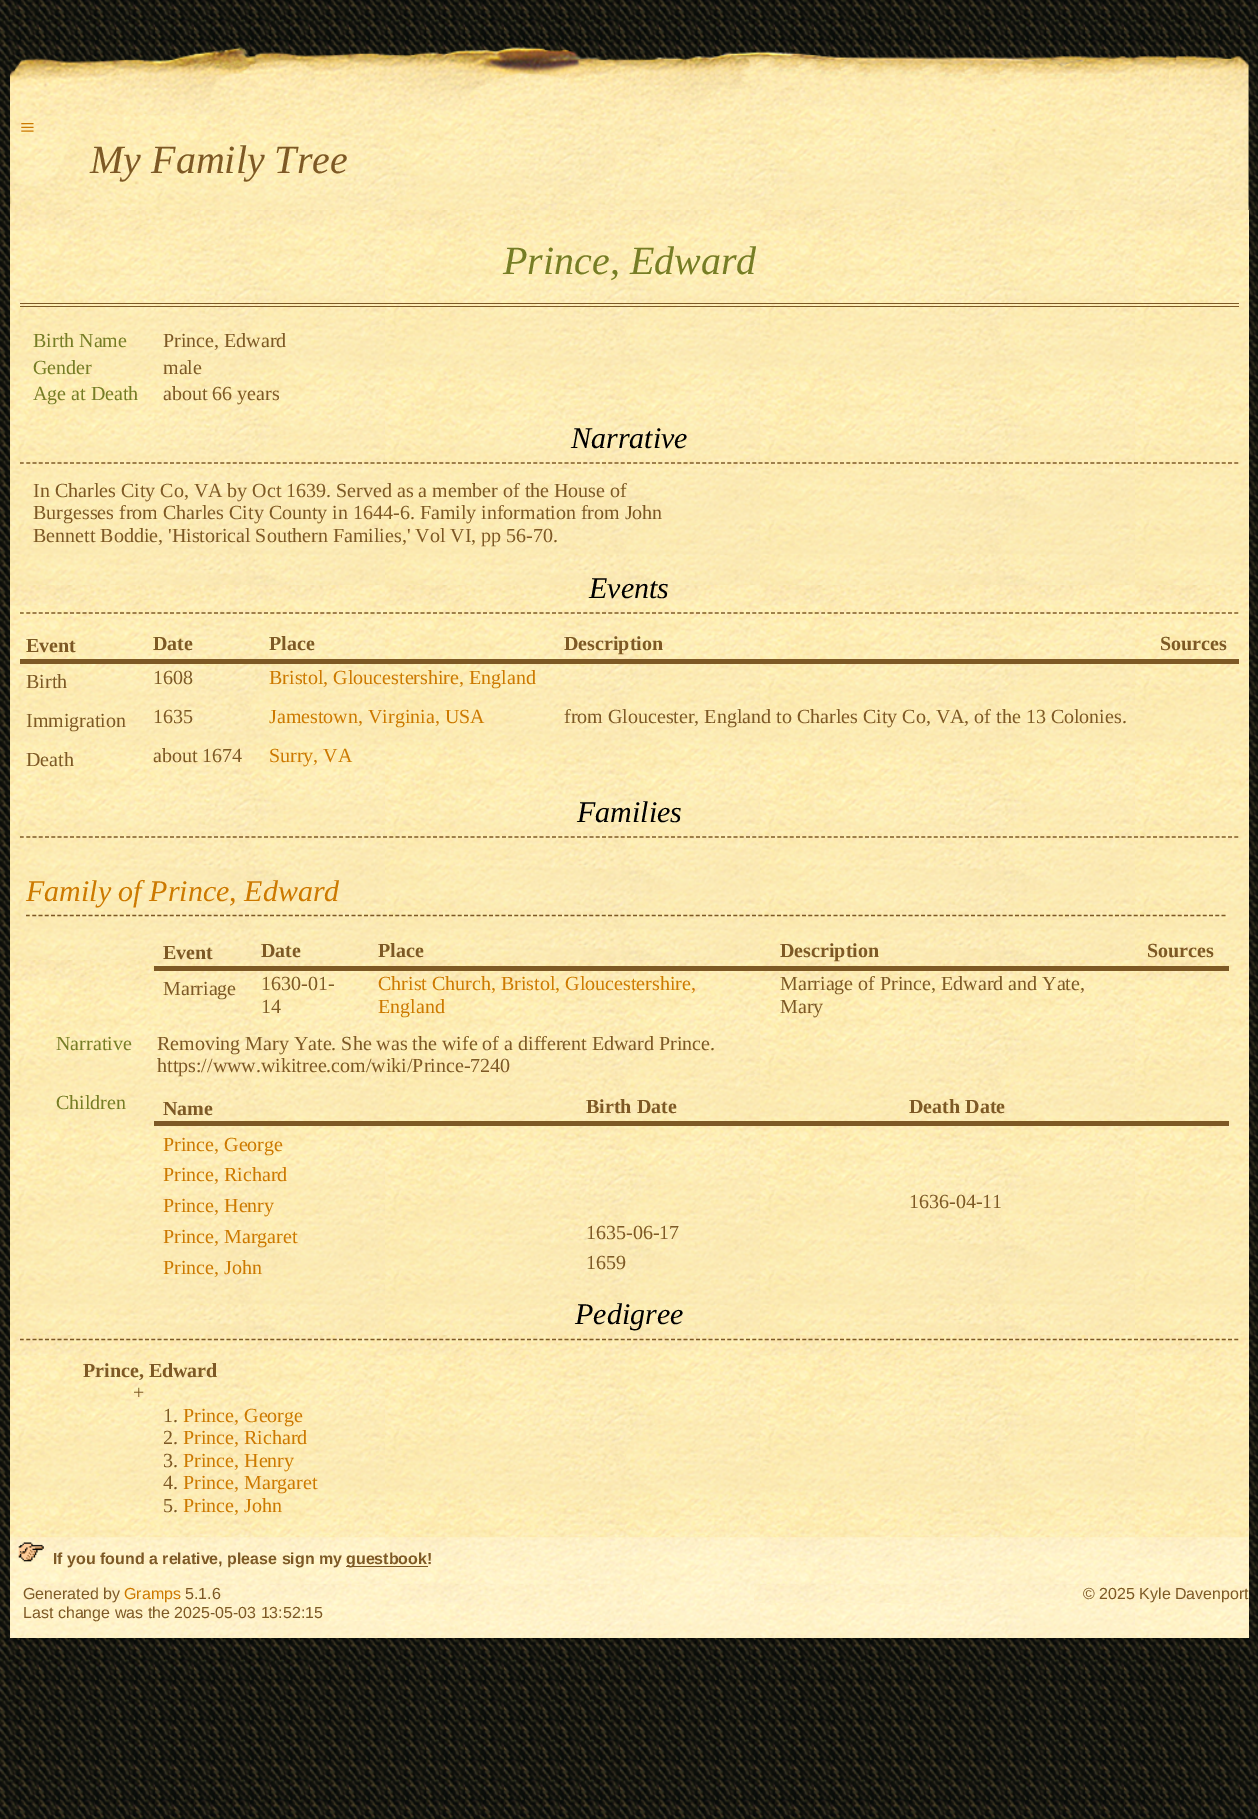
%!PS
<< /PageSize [1258 1819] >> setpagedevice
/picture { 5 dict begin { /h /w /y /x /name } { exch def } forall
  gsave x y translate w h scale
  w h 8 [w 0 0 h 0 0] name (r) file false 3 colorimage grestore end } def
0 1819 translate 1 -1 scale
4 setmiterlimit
1 setgray
0 0 1258 1819 rectfill
(img1.rgb) 0 0 1258 1819 picture
(img2.rgb) 10 47 1239 163 picture
/LiberationSerif-Regular [26 0 0 -26 0 0] selectfont
0.8 0.475 0 setrgbcolor
20 136 moveto (≡) show
/LiberationSerif-Italic [40 0 0 -40 0 0] selectfont
0.49 0.349 0.145 setrgbcolor
90 173 moveto (My Family Tree) show
1 0.949 0.776 setrgbcolor
10 210 1239 1328 rectfill
(img3.rgb) 10 210 1239 1328 picture
0.49 0.349 0.145 setrgbcolor
20 303 1219 1 rectfill
20 306 1219 1 rectfill
0.463 0.49 0.145 setrgbcolor
503 274 moveto (Prince, Edward) show
/LiberationSerif-Regular [20 0 0 -20 0 0] selectfont
33 347 moveto (Birth Name) show
0.49 0.349 0.145 setrgbcolor
163 347 moveto (Prince, Edward) show
0.463 0.49 0.145 setrgbcolor
33 374 moveto (Gender) show
0.49 0.349 0.145 setrgbcolor
163 374 moveto (male) show
0.463 0.49 0.145 setrgbcolor
33 400 moveto (Age at Death) show
0.49 0.349 0.145 setrgbcolor
163 400 moveto (about 66 years) show
1.2 setlinewidth
[3.75 2.51] 0 setdash
newpath 20 463 moveto 1239 463 lineto stroke
/LiberationSerif-Italic [30 0 0 -30 0 0] selectfont
0 setgray
571 448 moveto (Narrative) show
/LiberationSerif-Regular [20 0 0 -20 0 0] selectfont
0.49 0.349 0.145 setrgbcolor
33 497 moveto (In Charles City Co, VA by Oct 1639. Served as a member of the House of) show
33 519 moveto (Burgesses from Charles City County in 1644-6. Family information from John) show
33 542 moveto (Bennett Boddie, 'Historical Southern Families,' Vol VI, pp 56-70.) show
newpath 20 613 moveto 1239 613 lineto stroke
/LiberationSerif-Italic [30 0 0 -30 0 0] selectfont
0 setgray
589 598 moveto (Events) show
/LiberationSerif-Bold [20 0 0 -20 0 0] selectfont
0.49 0.349 0.145 setrgbcolor
26 652 moveto (Event) show
153 650 moveto (Date) show
269 650 moveto (Place) show
564 650 moveto (Description) show
20 659 1219 5 rectfill
1160 650 moveto (Sources) show
/LiberationSerif-Regular [20 0 0 -20 0 0] selectfont
26 688 moveto (Birth) show
153 684 moveto (1608) show
0.8 0.475 0 setrgbcolor
269 684 moveto (Bristol, Gloucestershire, England) show
0.49 0.349 0.145 setrgbcolor
26 727 moveto (Immigration) show
153 723 moveto (1635) show
0.8 0.475 0 setrgbcolor
269 723 moveto (Jamestown, Virginia, USA) show
0.49 0.349 0.145 setrgbcolor
564 723 moveto (from Gloucester, England to Charles City Co, VA, of the 13 Colonies.) show
26 766 moveto (Death) show
153 762 moveto (about 1674) show
0.8 0.475 0 setrgbcolor
269 762 moveto (Surry, VA) show
0.49 0.349 0.145 setrgbcolor
newpath 20 837 moveto 1239 837 lineto stroke
/LiberationSerif-Italic [30 0 0 -30 0 0] selectfont
0 setgray
577 822 moveto (Families) show
0.49 0.349 0.145 setrgbcolor
newpath 26 915.5 moveto 1226 915.5 lineto stroke
0.8 0.475 0 setrgbcolor
26 901 moveto (Family of Prince, Edward) show
/LiberationSerif-Bold [20 0 0 -20 0 0] selectfont
0.49 0.349 0.145 setrgbcolor
163 959 moveto (Event) show
261 957 moveto (Date) show
378 957 moveto (Place) show
780 957 moveto (Description) show
154 966 1075 5 rectfill
1147 957 moveto (Sources) show
/LiberationSerif-Regular [20 0 0 -20 0 0] selectfont
163 995 moveto (Marriage) show
261 990 moveto (1630-01-) show
261 1013 moveto (14) show
0.8 0.475 0 setrgbcolor
378 990 moveto (Christ Church, Bristol, Gloucestershire,) show
378 1013 moveto (England) show
0.49 0.349 0.145 setrgbcolor
780 990 moveto (Marriage of Prince, Edward and Yate,) show
780 1013 moveto (Mary) show
0.463 0.49 0.145 setrgbcolor
56 1050 moveto (Narrative) show
0.49 0.349 0.145 setrgbcolor
157 1050 moveto (Removing Mary Yate. She was the wife of a different Edward Prince.) show
157 1072 moveto (https://www.wikitree.com/wiki/Prince-7240) show
0.463 0.49 0.145 setrgbcolor
56 1109 moveto (Children) show
/LiberationSerif-Bold [20 0 0 -20 0 0] selectfont
0.49 0.349 0.145 setrgbcolor
163 1115 moveto (Name) show
586 1113 moveto (Birth Date) show
154 1121 1075 5 rectfill
909 1113 moveto (Death Date) show
/LiberationSerif-Regular [20 0 0 -20 0 0] selectfont
0.8 0.475 0 setrgbcolor
163 1151 moveto (Prince, George) show
163 1181 moveto (Prince, Richard) show
163 1212 moveto (Prince, Henry) show
0.49 0.349 0.145 setrgbcolor
909 1208 moveto (1636-04-11) show
0.8 0.475 0 setrgbcolor
163 1243 moveto (Prince, Margaret) show
0.49 0.349 0.145 setrgbcolor
586 1239 moveto (1635-06-17) show
0.8 0.475 0 setrgbcolor
163 1274 moveto (Prince, John) show
0.49 0.349 0.145 setrgbcolor
586 1269 moveto (1659) show
newpath 20 1339.5 moveto 1239 1339.5 lineto stroke
/LiberationSerif-Italic [30 0 0 -30 0 0] selectfont
0 setgray
575 1324 moveto (Pedigree) show
/LiberationSerif-Bold [20 0 0 -20 0 0] selectfont
0.49 0.349 0.145 setrgbcolor
83 1377 moveto (Prince, Edward) show
/LiberationSerif-Regular [20 0 0 -20 0 0] selectfont
133 1399 moveto (+) show
163 1422 moveto (1.) show
0.8 0.475 0 setrgbcolor
183 1422 moveto (Prince, George) show
0.49 0.349 0.145 setrgbcolor
163 1444 moveto (2.) show
0.8 0.475 0 setrgbcolor
183 1444 moveto (Prince, Richard) show
0.49 0.349 0.145 setrgbcolor
163 1467 moveto (3.) show
0.8 0.475 0 setrgbcolor
183 1467 moveto (Prince, Henry) show
0.49 0.349 0.145 setrgbcolor
163 1489 moveto (4.) show
0.8 0.475 0 setrgbcolor
183 1489 moveto (Prince, Margaret) show
0.49 0.349 0.145 setrgbcolor
163 1512 moveto (5.) show
0.8 0.475 0 setrgbcolor
183 1512 moveto (Prince, John) show
1 0.949 0.776 setrgbcolor
10 1569 1239 69 rectfill
(img4.rgb) 10 1537 1239 100 picture
10 1538 1239 31 rectfill
(img5.rgb) 10 1538 1239 31 picture
(img6.rgb) 18 1542 26 20 picture
/LiberationSans-Bold [16 0 0 -16 0 0] selectfont
0.49 0.349 0.145 setrgbcolor
53 1564 moveto (If you found a relative, please sign my) show
346 1566 82 1 rectfill
346 1564 moveto (guestbook!) show
1 0.949 0.776 setrgbcolor
642 1584 1 37 rectfill
(img7.rgb) 22 1583 620 39 picture
/LiberationSans-Regular [16 0 0 -16 0 0] selectfont
0.49 0.349 0.145 setrgbcolor
23 1599 moveto (Generated by) show
0.8 0.475 0 setrgbcolor
124 1599 moveto (Gramps) show
0.49 0.349 0.145 setrgbcolor
185 1599 moveto (5.1.6) show
23 1618 moveto (Last change was the 2025-05-03 13:52:15) show
1 0.949 0.776 setrgbcolor
754 1584 495 19 rectfill
(img8.rgb) 754 1583 494 20 picture
0.49 0.349 0.145 setrgbcolor
1083 1599 moveto (© 2025 Kyle Davenport) show
showpage
